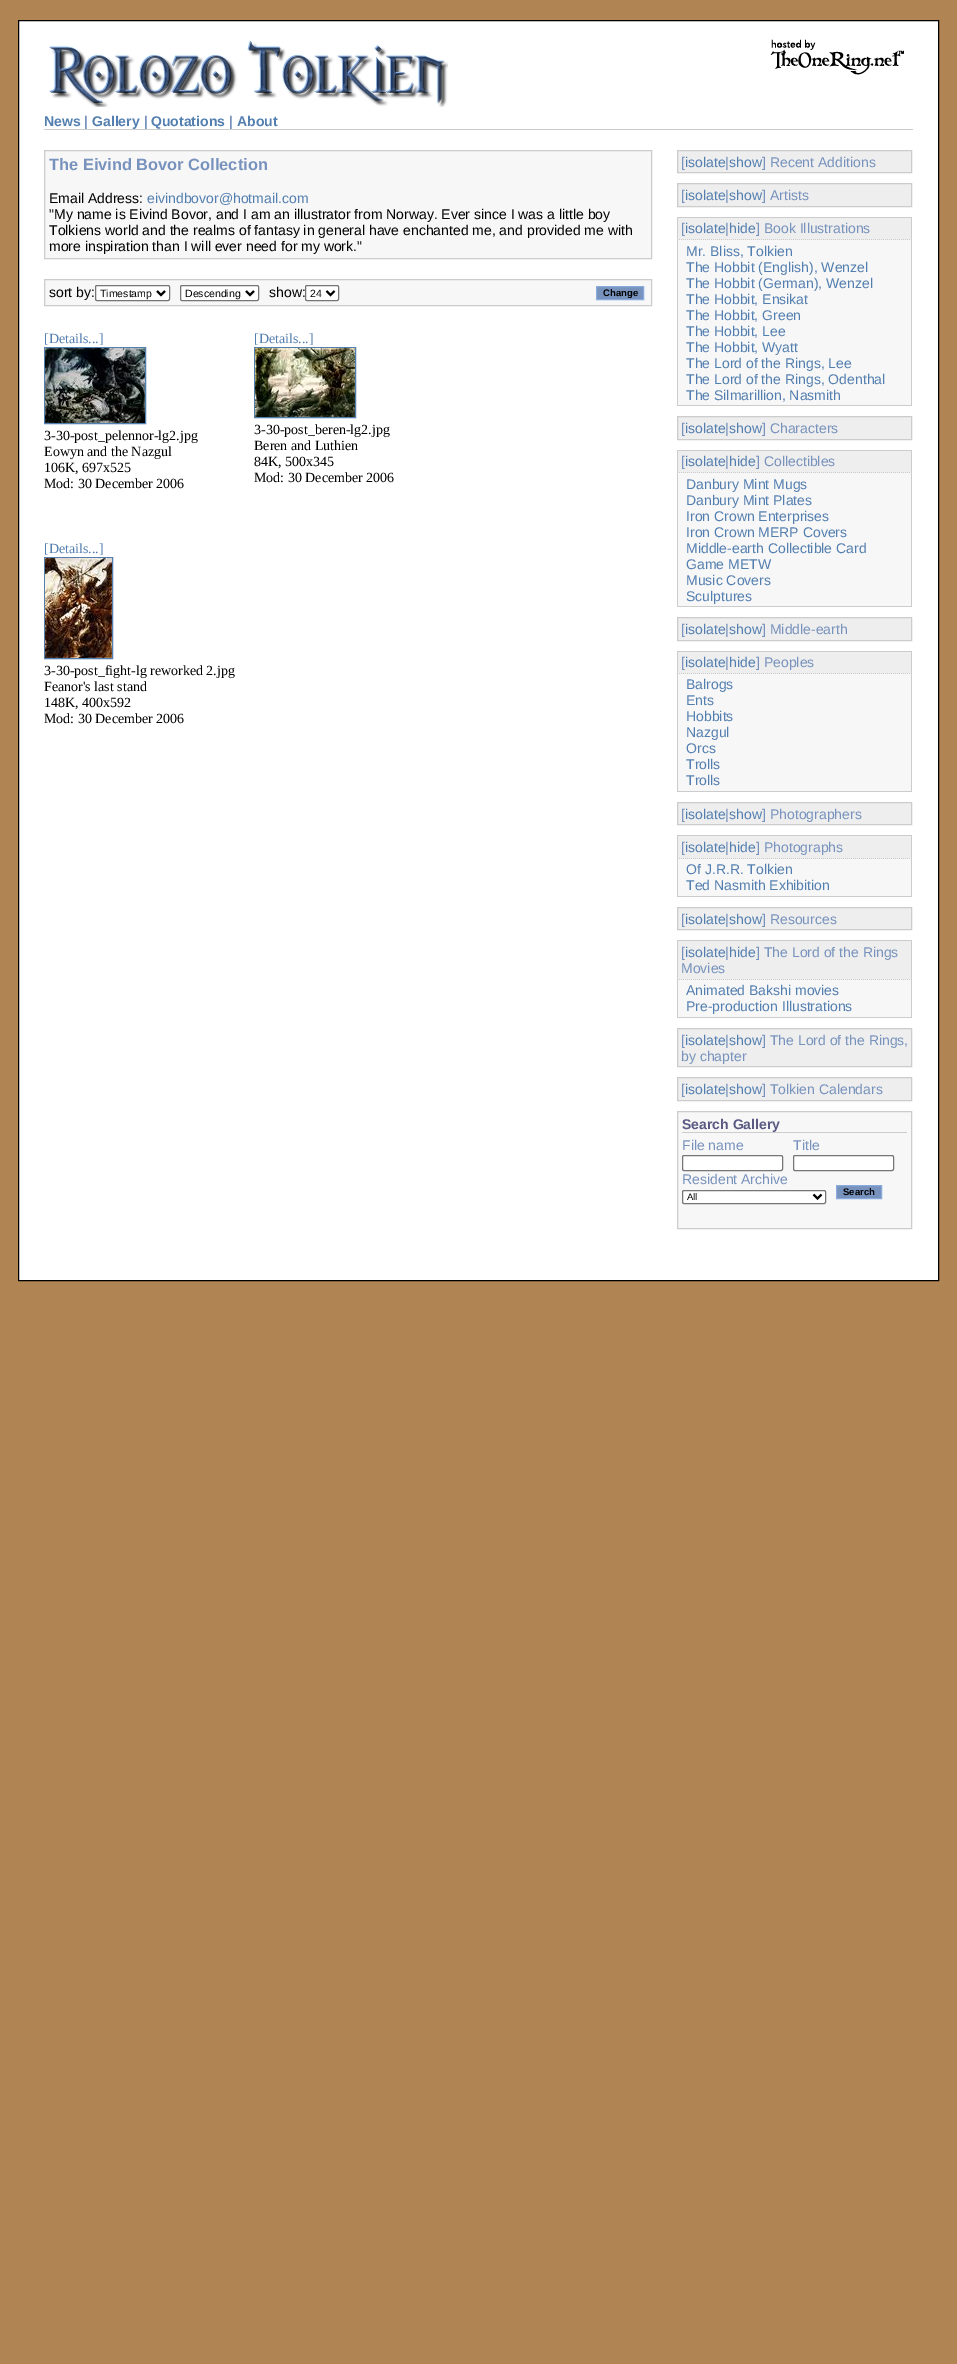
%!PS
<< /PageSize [957 2364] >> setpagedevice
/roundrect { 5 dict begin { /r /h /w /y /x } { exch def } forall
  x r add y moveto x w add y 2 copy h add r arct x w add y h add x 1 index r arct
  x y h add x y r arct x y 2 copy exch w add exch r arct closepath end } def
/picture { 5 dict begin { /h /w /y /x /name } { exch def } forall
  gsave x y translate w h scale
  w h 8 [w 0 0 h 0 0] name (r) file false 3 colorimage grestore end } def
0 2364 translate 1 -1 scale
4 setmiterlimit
0.69 0.522 0.325 setrgbcolor
0 0 957 2364 rectfill
1 setgray
newpath 18.5 20.5 moveto 938.5 20.5 lineto 938.5 1280.5 lineto 18.5 1280.5 lineto closepath gsave fill grestore
0 setgray
stroke
(img1.rgb) 49 40 399 67 picture
(img2.rgb) 770 39 134 36 picture
0.8 setgray
44 129 869 1 rectfill
/LiberationSans-Bold [14 0 0 -14 0 0] selectfont
0.325 0.494 0.69 setrgbcolor
44 126 moveto (News) show
0.467 0.573 0.737 setrgbcolor
84 126 moveto (|) show
0.325 0.494 0.69 setrgbcolor
92 126 moveto (Gallery) show
0.467 0.573 0.737 setrgbcolor
144 126 moveto (|) show
0.325 0.494 0.69 setrgbcolor
151 126 moveto (Quotations) show
0.467 0.573 0.737 setrgbcolor
229 126 moveto (|) show
0.325 0.494 0.69 setrgbcolor
237 126 moveto (About) show
0.969 setgray
newpath 44.5 150.5 moveto 651.5 150.5 lineto 651.5 258.5 lineto 44.5 258.5 lineto closepath gsave fill grestore
0.8 setgray
stroke
/LiberationSans-Bold [16.4 0 0 -16.4 0 0] selectfont
0.467 0.573 0.737 setrgbcolor
49 170 moveto (The Eivind Bovor Collection) show
/LiberationSans-Regular [14 0 0 -14 0 0] selectfont
0 setgray
49 203 moveto (Email Address:) show
0.325 0.494 0.69 setrgbcolor
147 203 moveto (eivindbovor@hotmail.com) show
0 setgray
49 219 moveto ("My name is Eivind Bovor, and I am an illustrator from Norway. Ever since I was a little boy) show
49 235 moveto (Tolkiens world and the realms of fantasy in general have enchanted me, and provided me with) show
49 251 moveto (more inspiration than I will ever need for my work.") show
0.969 setgray
newpath 44.5 279.5 moveto 651.5 279.5 lineto 651.5 305.5 lineto 44.5 305.5 lineto closepath gsave fill grestore
0.8 setgray
stroke
0 setgray
49 297 moveto (sort by:) show
1 setgray
95.5 285.5 74 15 1.5 roundrect gsave fill grestore
0.463 setgray
stroke
0 setgray
2 setlinewidth
newpath 157 291 moveto 161 295 lineto 165 291 lineto stroke
/LiberationSans-Regular [10.5 0 0 -10.5 0 0] selectfont
100 297 moveto (Timestamp) show
1 setgray
180.5 285.5 78 15 1.5 roundrect gsave fill grestore
0.463 setgray
1 setlinewidth
stroke
0 setgray
2 setlinewidth
newpath 246 291 moveto 250 295 lineto 254 291 lineto stroke
185 297 moveto (Descending) show
/LiberationSans-Regular [14 0 0 -14 0 0] selectfont
269 297 moveto (show:) show
1 setgray
305.5 285.5 33 15 1.5 roundrect gsave fill grestore
0.463 setgray
1 setlinewidth
stroke
0 setgray
2 setlinewidth
newpath 326.5 291 moveto 330.5 295 lineto 334.5 291 lineto stroke
/LiberationSans-Regular [10.5 0 0 -10.5 0 0] selectfont
310 297 moveto (24) show
0.467 0.573 0.737 setrgbcolor
newpath 596.5 286.5 moveto 643.5 286.5 lineto 643.5 299.5 lineto 596.5 299.5 lineto closepath gsave fill grestore
0.533 0.667 0.867 setrgbcolor
1 setlinewidth
stroke
/LiberationSans-Bold [9.5 0 0 -9.5 0 0] selectfont
0 setgray
603 296 moveto (Change) show
/LiberationSerif-Regular [14 0 0 -14 0 0] selectfont
0.325 0.494 0.69 setrgbcolor
44 343 moveto ([Details...]) show
44.5 347.5 101 76 rectstroke
(img3.rgb) 45 348 100 75 picture
0 setgray
44 440 moveto (3-30-post_pelennor-lg2.jpg) show
44 456 moveto (Eowyn and the Nazgul) show
44 472 moveto (106K, 697x525) show
44 488 moveto (Mod: 30 December 2006) show
0.325 0.494 0.69 setrgbcolor
254 343 moveto ([Details...]) show
254.5 347.5 101 70 rectstroke
(img4.rgb) 255 348 100 69 picture
0 setgray
254 434 moveto (3-30-post_beren-lg2.jpg) show
254 450 moveto (Beren and Luthien) show
254 466 moveto (84K, 500x345) show
254 482 moveto (Mod: 30 December 2006) show
0.325 0.494 0.69 setrgbcolor
44 553 moveto ([Details...]) show
44.5 557.5 68 101 rectstroke
(img5.rgb) 45 558 67 100 picture
0 setgray
44 675 moveto (3-30-post_fight-lg reworked 2.jpg) show
44 691 moveto (Feanor's last stand) show
44 707 moveto (148K, 400x592) show
44 723 moveto (Mod: 30 December 2006) show
0.933 setgray
newpath 677.5 150.5 moveto 911.5 150.5 lineto 911.5 172.5 lineto 677.5 172.5 lineto closepath gsave fill grestore
0.8 setgray
stroke
/LiberationSans-Regular [14 0 0 -14 0 0] selectfont
0.467 0.573 0.737 setrgbcolor
681 167 moveto ([) show
0.325 0.494 0.69 setrgbcolor
685 167 moveto (isolate show) show
0.467 0.573 0.737 setrgbcolor
725 167 moveto (|) show
762 167 moveto (] Recent Additions) show
0.933 setgray
newpath 677.5 183.5 moveto 911.5 183.5 lineto 911.5 206.5 lineto 677.5 206.5 lineto closepath gsave fill grestore
0.8 setgray
stroke
0.467 0.573 0.737 setrgbcolor
681 200 moveto ([) show
0.325 0.494 0.69 setrgbcolor
685 200 moveto (isolate show) show
0.467 0.573 0.737 setrgbcolor
725 200 moveto (|) show
762 200 moveto (] Artists) show
0.933 setgray
678 218 233 22 rectfill
0.8 setgray
677 217 235 1 rectfill
911 217 1 189 rectfill
[1 1] 0 setdash
newpath 677 239.5 moveto 912 239.5 lineto stroke
677 217 1 23 rectfill
0.467 0.573 0.737 setrgbcolor
681 233 moveto ([) show
0.325 0.494 0.69 setrgbcolor
685 233 moveto (isolate hide) show
0.467 0.573 0.737 setrgbcolor
725 233 moveto (|) show
756 233 moveto (] Book Illustrations) show
0.969 setgray
678 240 233 165 rectfill
0.8 setgray
677 405 235 1 rectfill
677 240 1 166 rectfill
0.325 0.494 0.69 setrgbcolor
686 256 moveto (Mr. Bliss, Tolkien) show
686 272 moveto (The Hobbit \(English\), Wenzel) show
686 288 moveto (The Hobbit \(German\), Wenzel) show
686 304 moveto (The Hobbit, Ensikat) show
686 320 moveto (The Hobbit, Green) show
686 336 moveto (The Hobbit, Lee) show
686 352 moveto (The Hobbit, Wyatt) show
686 368 moveto (The Lord of the Rings, Lee) show
686 384 moveto (The Lord of the Rings, Odenthal) show
686 400 moveto (The Silmarillion, Nasmith) show
0.933 setgray
newpath 677.5 416.5 moveto 911.5 416.5 lineto 911.5 439.5 lineto 677.5 439.5 lineto closepath gsave fill grestore
0.8 setgray
[] 0 setdash
stroke
0.467 0.573 0.737 setrgbcolor
681 433 moveto ([) show
0.325 0.494 0.69 setrgbcolor
685 433 moveto (isolate show) show
0.467 0.573 0.737 setrgbcolor
725 433 moveto (|) show
762 433 moveto (] Characters) show
0.933 setgray
678 451 233 22 rectfill
0.8 setgray
677 450 235 1 rectfill
911 450 1 157 rectfill
[1 1] 0 setdash
newpath 677 472.5 moveto 912 472.5 lineto stroke
677 450 1 23 rectfill
0.467 0.573 0.737 setrgbcolor
681 466 moveto ([) show
0.325 0.494 0.69 setrgbcolor
685 466 moveto (isolate hide) show
0.467 0.573 0.737 setrgbcolor
725 466 moveto (|) show
756 466 moveto (] Collectibles) show
0.969 setgray
678 473 233 133 rectfill
0.8 setgray
677 606 235 1 rectfill
677 473 1 134 rectfill
0.325 0.494 0.69 setrgbcolor
686 489 moveto (Danbury Mint Mugs) show
686 505 moveto (Danbury Mint Plates) show
686 521 moveto (Iron Crown Enterprises) show
686 537 moveto (Iron Crown MERP Covers) show
686 553 moveto (Middle-earth Collectible Card) show
686 569 moveto (Game METW) show
686 585 moveto (Music Covers) show
686 601 moveto (Sculptures) show
0.933 setgray
newpath 677.5 617.5 moveto 911.5 617.5 lineto 911.5 640.5 lineto 677.5 640.5 lineto closepath gsave fill grestore
0.8 setgray
[] 0 setdash
stroke
0.467 0.573 0.737 setrgbcolor
681 634 moveto ([) show
0.325 0.494 0.69 setrgbcolor
685 634 moveto (isolate show) show
0.467 0.573 0.737 setrgbcolor
725 634 moveto (|) show
762 634 moveto (] Middle-earth) show
0.933 setgray
678 652 233 22 rectfill
0.8 setgray
677 651 235 1 rectfill
911 651 1 141 rectfill
[1 1] 0 setdash
newpath 677 673.5 moveto 912 673.5 lineto stroke
677 651 1 23 rectfill
0.467 0.573 0.737 setrgbcolor
681 667 moveto ([) show
0.325 0.494 0.69 setrgbcolor
685 667 moveto (isolate hide) show
0.467 0.573 0.737 setrgbcolor
725 667 moveto (|) show
756 667 moveto (] Peoples) show
0.969 setgray
678 674 233 117 rectfill
0.8 setgray
677 791 235 1 rectfill
677 674 1 118 rectfill
0.325 0.494 0.69 setrgbcolor
686 689 moveto (Balrogs) show
686 705 moveto (Ents) show
686 721 moveto (Hobbits) show
686 737 moveto (Nazgul) show
686 753 moveto (Orcs) show
686 769 moveto (Trolls) show
686 785 moveto (Trolls) show
0.933 setgray
newpath 677.5 802.5 moveto 911.5 802.5 lineto 911.5 824.5 lineto 677.5 824.5 lineto closepath gsave fill grestore
0.8 setgray
[] 0 setdash
stroke
0.467 0.573 0.737 setrgbcolor
681 819 moveto ([) show
0.325 0.494 0.69 setrgbcolor
685 819 moveto (isolate show) show
0.467 0.573 0.737 setrgbcolor
725 819 moveto (|) show
762 819 moveto (] Photographers) show
0.933 setgray
678 836 233 23 rectfill
0.8 setgray
677 835 235 1 rectfill
911 835 1 62 rectfill
[1 1] 0 setdash
newpath 677 858.5 moveto 912 858.5 lineto stroke
677 835 1 24 rectfill
0.467 0.573 0.737 setrgbcolor
681 852 moveto ([) show
0.325 0.494 0.69 setrgbcolor
685 852 moveto (isolate hide) show
0.467 0.573 0.737 setrgbcolor
725 852 moveto (|) show
756 852 moveto (] Photographs) show
0.969 setgray
678 859 233 37 rectfill
0.8 setgray
677 896 235 1 rectfill
677 859 1 38 rectfill
0.325 0.494 0.69 setrgbcolor
686 874 moveto (Of J.R.R. Tolkien) show
686 890 moveto (Ted Nasmith Exhibition) show
0.933 setgray
newpath 677.5 907.5 moveto 911.5 907.5 lineto 911.5 929.5 lineto 677.5 929.5 lineto closepath gsave fill grestore
0.8 setgray
[] 0 setdash
stroke
0.467 0.573 0.737 setrgbcolor
681 924 moveto ([) show
0.325 0.494 0.69 setrgbcolor
685 924 moveto (isolate show) show
0.467 0.573 0.737 setrgbcolor
725 924 moveto (|) show
762 924 moveto (] Resources) show
0.933 setgray
678 941 233 39 rectfill
0.8 setgray
677 940 235 1 rectfill
911 940 1 78 rectfill
[1 1] 0 setdash
newpath 677 979.5 moveto 912 979.5 lineto stroke
677 940 1 40 rectfill
0.467 0.573 0.737 setrgbcolor
681 957 moveto ([) show
0.325 0.494 0.69 setrgbcolor
685 957 moveto (isolate hide) show
0.467 0.573 0.737 setrgbcolor
725 957 moveto (|) show
756 957 moveto (] The Lord of the Rings) show
681 973 moveto (Movies) show
0.969 setgray
678 980 233 37 rectfill
0.8 setgray
677 1017 235 1 rectfill
677 980 1 38 rectfill
0.325 0.494 0.69 setrgbcolor
686 995 moveto (Animated Bakshi movies) show
686 1011 moveto (Pre-production Illustrations) show
0.933 setgray
newpath 677.5 1028.5 moveto 911.5 1028.5 lineto 911.5 1066.5 lineto 677.5 1066.5 lineto closepath gsave fill grestore
0.8 setgray
[] 0 setdash
stroke
0.467 0.573 0.737 setrgbcolor
681 1045 moveto ([) show
0.325 0.494 0.69 setrgbcolor
685 1045 moveto (isolate show) show
0.467 0.573 0.737 setrgbcolor
725 1045 moveto (|) show
762 1045 moveto (] The Lord of the Rings,) show
681 1061 moveto (by chapter) show
0.933 setgray
newpath 677.5 1077.5 moveto 911.5 1077.5 lineto 911.5 1100.5 lineto 677.5 1100.5 lineto closepath gsave fill grestore
0.8 setgray
stroke
0.467 0.573 0.737 setrgbcolor
681 1094 moveto ([) show
0.325 0.494 0.69 setrgbcolor
685 1094 moveto (isolate show) show
0.467 0.573 0.737 setrgbcolor
725 1094 moveto (|) show
762 1094 moveto (] Tolkien Calendars) show
0.969 setgray
newpath 677.5 1111.5 moveto 911.5 1111.5 lineto 911.5 1228.5 lineto 677.5 1228.5 lineto closepath gsave fill grestore
0.8 setgray
stroke
682 1132 225 1 rectfill
/LiberationSans-Bold [14 0 0 -14 0 0] selectfont
0.349 0.349 0.514 setrgbcolor
682 1129 moveto (Search Gallery) show
/LiberationSans-Regular [14 0 0 -14 0 0] selectfont
0.467 0.573 0.737 setrgbcolor
682 1150 moveto (File name) show
1 setgray
682.5 1155.5 100 15 1.5 roundrect gsave fill grestore
0.463 setgray
stroke
0.467 0.573 0.737 setrgbcolor
793 1150 moveto (Title) show
1 setgray
793.5 1155.5 100 15 1.5 roundrect gsave fill grestore
0.463 setgray
stroke
0.467 0.573 0.737 setrgbcolor
682 1184 moveto (Resident Archive) show
1 setgray
682.5 1190.5 143 13 1.5 roundrect gsave fill grestore
0.463 setgray
stroke
0 setgray
2 setlinewidth
newpath 813.5 1194.5 moveto 817.5 1198.5 lineto 821.5 1194.5 lineto stroke
/LiberationSans-Regular [9.5 0 0 -9.5 0 0] selectfont
687 1200 moveto (All) show
0.467 0.573 0.737 setrgbcolor
newpath 836.5 1185.5 moveto 881.5 1185.5 lineto 881.5 1198.5 lineto 836.5 1198.5 lineto closepath gsave fill grestore
0.533 0.667 0.867 setrgbcolor
1 setlinewidth
stroke
/LiberationSans-Bold [9.5 0 0 -9.5 0 0] selectfont
0 setgray
843 1195 moveto (Search) show
showpage
